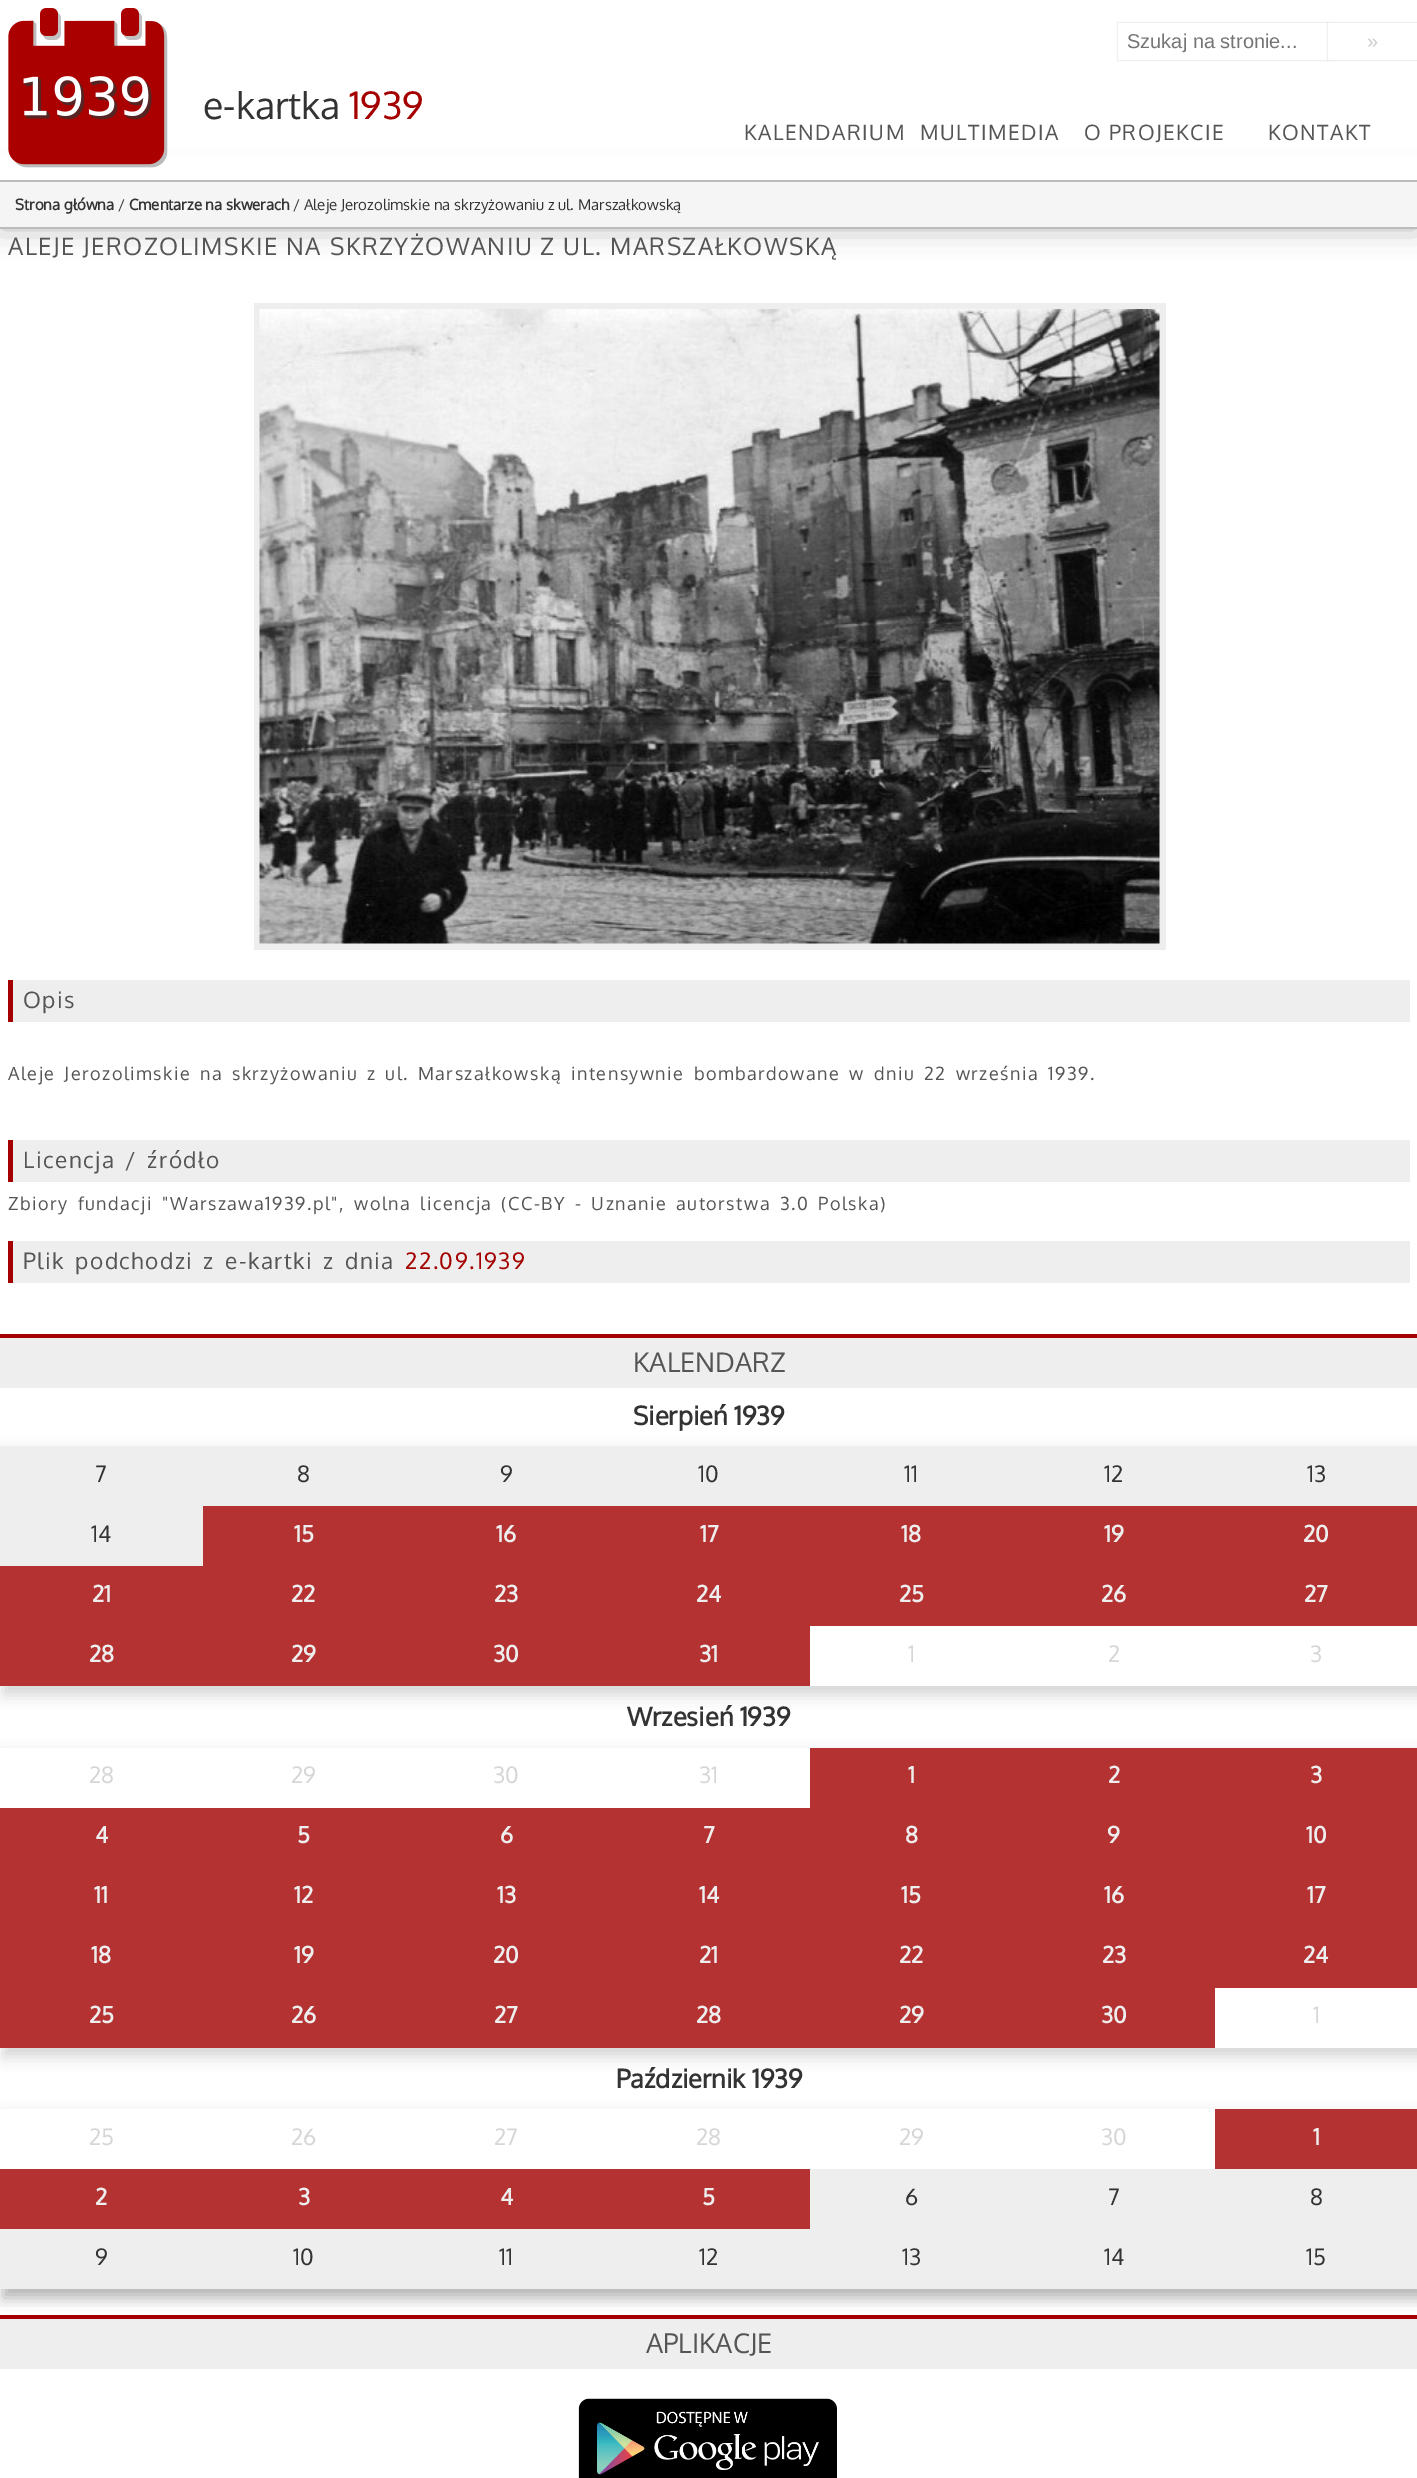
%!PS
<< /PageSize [1417 2478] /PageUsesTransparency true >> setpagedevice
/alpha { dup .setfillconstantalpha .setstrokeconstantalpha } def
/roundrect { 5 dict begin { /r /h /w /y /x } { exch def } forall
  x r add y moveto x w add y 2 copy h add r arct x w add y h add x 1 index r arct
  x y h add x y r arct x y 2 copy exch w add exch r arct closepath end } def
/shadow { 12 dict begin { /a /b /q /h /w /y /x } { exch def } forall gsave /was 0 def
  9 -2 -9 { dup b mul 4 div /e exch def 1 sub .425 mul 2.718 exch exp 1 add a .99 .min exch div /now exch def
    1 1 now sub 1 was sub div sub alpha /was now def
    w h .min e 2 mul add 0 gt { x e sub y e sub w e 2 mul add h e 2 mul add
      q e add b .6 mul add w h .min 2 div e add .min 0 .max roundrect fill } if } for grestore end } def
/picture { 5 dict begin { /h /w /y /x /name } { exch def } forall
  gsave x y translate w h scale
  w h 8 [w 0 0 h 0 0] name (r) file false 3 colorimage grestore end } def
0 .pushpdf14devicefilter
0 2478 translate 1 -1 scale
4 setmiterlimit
1 setgray
0 0 1417 2478 rectfill
0 setgray
0 182 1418 46 0 15 0.3 shadow
1 setgray
0 155 1417 25 rectfill
0.733 setgray
0 180 1417 2 rectfill
0.8 setgray
1118 23 210 37 0 1 1 shadow
1 setgray
1118 23 210 37 rectfill
/LiberationSans-Regular [20 0 0 -20 0 0] selectfont
0.459 setgray
1127 48 moveto (Szukaj na stronie...) show
0.8 setgray
1328 23 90 37 0 1 1 shadow
1 setgray
1328 23 89 37 rectfill
0.8 setgray
1367 48 moveto (») show
(img1.rgb) 8 8 160 160 picture
/Oxygen-Regular [37.5 0 0 -37.5 0 0] selectfont
0.2 setgray
203 119 moveto (e-kartka) show
0.643 0 0 setrgbcolor
349 119 moveto (1939) show
/Oxygen-Regular [21 0 0 -21 0 0] selectfont
0.333 setgray
744 140 moveto 1.5 0 (KALENDARIUM) ashow
920 140 moveto 1.5 0 (MULTIMEDIA) ashow
1084 140 moveto 1.5 0 (O PROJEKCIE) ashow
1268 140 moveto 1.5 0 (KONTAKT) ashow
0.961 setgray
0 182 1417 45 rectfill
0.733 setgray
0 227 1417 2 rectfill
/Oxygen-Bold [15 0 0 -15 0 0] selectfont
0.2 setgray
15 210 moveto (Strona główna) show
/Oxygen-Regular [15 0 0 -15 0 0] selectfont
118 210 moveto (/) show
/Oxygen-Bold [15 0 0 -15 0 0] selectfont
129 210 moveto (Cmentarze na skwerach) show
/Oxygen-Regular [15 0 0 -15 0 0] selectfont
293 210 moveto (/ Aleje Jerozolimskie na skrzyżowaniu z ul. Marszałkowską) show
/Oxygen-Regular [24 0 0 -24 0 0] selectfont
0.333 setgray
8 255 moveto 1.5 0 (ALEJE JEROZOLIMSKIE NA SKRZYŻOWANIU Z UL. MARSZAŁKOWSKĄ) ashow
0.933 setgray
254 303 912 647 rectfill
(img2.rgb) 259 309 901 635 picture
13 980 1397 42 rectfill
0.643 0 0 setrgbcolor
8 980 5 42 rectfill
/Oxygen-Regular [22.5 0 0 -22.5 0 0] selectfont
0.333 setgray
23 1008 moveto 1.5 0 (Opis) ashow
/Oxygen-Regular [18 0 0 -18 0 0] selectfont
8 1080 moveto 3 0 32 1.5 0 (Aleje Jerozolimskie na skrzyżowaniu z ul. Marszałkowską intensywnie bombardowane w dniu 22 września 1939.) awidthshow
0.933 setgray
13 1140 1397 42 rectfill
0.643 0 0 setrgbcolor
8 1140 5 42 rectfill
/Oxygen-Regular [22.5 0 0 -22.5 0 0] selectfont
0.333 setgray
23 1168 moveto 3 0 32 1.5 0 (Licencja / źródło) awidthshow
/Oxygen-Regular [18 0 0 -18 0 0] selectfont
8 1210 moveto 3 0 32 1.5 0 (Zbiory fundacji "Warszawa1939.pl", wolna licencja \(CC-BY - Uznanie autorstwa 3.0 Polska\)) awidthshow
0.933 setgray
13 1241 1397 42 rectfill
0.643 0 0 setrgbcolor
8 1241 5 42 rectfill
/Oxygen-Regular [22.5 0 0 -22.5 0 0] selectfont
0.333 setgray
23 1269 moveto 3 0 32 1.5 0 (Plik podchodzi z e-kartki z dnia) awidthshow
0.643 0 0 setrgbcolor
405 1269 moveto 1.5 0 (22.09.1939) ashow
gsave
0 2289 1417 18 rectclip
0.2 setgray
3 1344 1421 954 0 7 0.2 shadow
grestore
newpath 0 1334 moveto 0 1338 lineto 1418 1338 lineto 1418 1383 lineto 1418 1334 lineto closepath fill
0.933 setgray
0 1338 1417 50 rectfill
/Oxygen-Regular [27 0 0 -27 0 0] selectfont
0.333 setgray
633 1372 moveto (KALENDARZ) show
gsave
newpath 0 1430 moveto 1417 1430 lineto 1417 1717 lineto 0 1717 lineto closepath 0 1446 moveto 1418 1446 lineto 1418 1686 lineto 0 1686 lineto closepath eoclip newpath
0.2 setgray
3 1452 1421 243 0 7 0.2 shadow
grestore
/Oxygen-Bold [25.5 0 0 -25.5 0 0] selectfont
0.2 setgray
633 1425 moveto (Sierpień 1939) show
0.933 setgray
0 1446 1417 60 rectfill
/Oxygen-Regular [22.5 0 0 -22.5 0 0] selectfont
0.2 setgray
95 1482 moveto (7) show
297 1482 moveto (8) show
500 1482 moveto (9) show
698 1482 moveto (10) show
904 1482 moveto (11) show
1104 1482 moveto (12) show
1307 1482 moveto (13) show
0.933 setgray
0 1506 203 60 rectfill
0.2 setgray
91 1542 moveto (14) show
0.71 0.196 0.196 setrgbcolor
203 1506 1214 60 rectfill
/Oxygen-Bold [22.5 0 0 -22.5 0 0] selectfont
0.933 setgray
294 1542 moveto (15) show
496 1542 moveto (16) show
700 1542 moveto (17) show
901 1542 moveto (18) show
1104 1542 moveto (19) show
1303 1542 moveto (20) show
0.71 0.196 0.196 setrgbcolor
0 1566 1417 60 rectfill
0.933 setgray
92 1602 moveto (21) show
291 1602 moveto (22) show
494 1602 moveto (23) show
696 1602 moveto (24) show
899 1602 moveto (25) show
1101 1602 moveto (26) show
1304 1602 moveto (27) show
0.71 0.196 0.196 setrgbcolor
0 1626 810 60 rectfill
0.933 setgray
89 1662 moveto (28) show
291 1662 moveto (29) show
493 1662 moveto (30) show
699 1662 moveto (31) show
/Oxygen-Regular [22.5 0 0 -22.5 0 0] selectfont
0.839 setgray
908 1662 moveto (1) show
1108 1662 moveto (2) show
1310 1662 moveto (3) show
/Oxygen-Bold [25.5 0 0 -25.5 0 0] selectfont
0.2 setgray
627 1726 moveto (Wrzesień 1939) show
gsave
newpath 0 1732 moveto 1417 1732 lineto 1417 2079 lineto 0 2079 lineto closepath 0 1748 moveto 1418 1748 lineto 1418 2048 lineto 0 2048 lineto closepath eoclip newpath
3 1754 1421 303 0 7 0.2 shadow
grestore
/Oxygen-Regular [22.5 0 0 -22.5 0 0] selectfont
0.839 setgray
89 1783 moveto (28) show
291 1783 moveto (29) show
493 1783 moveto (30) show
699 1783 moveto (31) show
0.71 0.196 0.196 setrgbcolor
810 1748 607 60 rectfill
/Oxygen-Bold [22.5 0 0 -22.5 0 0] selectfont
0.933 setgray
908 1783 moveto (1) show
1108 1783 moveto (2) show
1310 1783 moveto (3) show
0.71 0.196 0.196 setrgbcolor
0 1808 1417 60 rectfill
0.933 setgray
95 1843 moveto (4) show
297 1843 moveto (5) show
500 1843 moveto (6) show
703 1843 moveto (7) show
905 1843 moveto (8) show
1107 1843 moveto (9) show
1306 1843 moveto (10) show
0.71 0.196 0.196 setrgbcolor
0 1868 1417 60 rectfill
0.933 setgray
94 1903 moveto (11) show
294 1903 moveto (12) show
497 1903 moveto (13) show
699 1903 moveto (14) show
901 1903 moveto (15) show
1104 1903 moveto (16) show
1307 1903 moveto (17) show
0.71 0.196 0.196 setrgbcolor
0 1928 1417 60 rectfill
0.933 setgray
91 1963 moveto (18) show
294 1963 moveto (19) show
493 1963 moveto (20) show
699 1963 moveto (21) show
899 1963 moveto (22) show
1102 1963 moveto (23) show
1303 1963 moveto (24) show
0.71 0.196 0.196 setrgbcolor
0 1988 1215 60 rectfill
0.933 setgray
89 2023 moveto (25) show
291 2023 moveto (26) show
494 2023 moveto (27) show
696 2023 moveto (28) show
899 2023 moveto (29) show
1101 2023 moveto (30) show
/Oxygen-Regular [22.5 0 0 -22.5 0 0] selectfont
0.839 setgray
1313 2023 moveto (1) show
/Oxygen-Bold [25.5 0 0 -25.5 0 0] selectfont
0.2 setgray
616 2088 moveto (Październik 1939) show
gsave
newpath 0 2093 moveto 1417 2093 lineto 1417 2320 lineto 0 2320 lineto closepath 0 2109 moveto 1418 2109 lineto 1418 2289 lineto 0 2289 lineto closepath eoclip newpath
3 2115 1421 183 0 7 0.2 shadow
grestore
/Oxygen-Regular [22.5 0 0 -22.5 0 0] selectfont
0.839 setgray
89 2145 moveto (25) show
291 2145 moveto (26) show
494 2145 moveto (27) show
696 2145 moveto (28) show
899 2145 moveto (29) show
1101 2145 moveto (30) show
0.71 0.196 0.196 setrgbcolor
1215 2109 202 60 rectfill
/Oxygen-Bold [22.5 0 0 -22.5 0 0] selectfont
0.933 setgray
1313 2145 moveto (1) show
0.71 0.196 0.196 setrgbcolor
0 2169 810 60 rectfill
0.933 setgray
95 2205 moveto (2) show
298 2205 moveto (3) show
500 2205 moveto (4) show
702 2205 moveto (5) show
810 2169 607 60 rectfill
/Oxygen-Regular [22.5 0 0 -22.5 0 0] selectfont
0.2 setgray
905 2205 moveto (6) show
1108 2205 moveto (7) show
1310 2205 moveto (8) show
0.933 setgray
0 2229 1417 60 rectfill
0.2 setgray
95 2265 moveto (9) show
293 2265 moveto (10) show
499 2265 moveto (11) show
699 2265 moveto (12) show
902 2265 moveto (13) show
1104 2265 moveto (14) show
1306 2265 moveto (15) show
0.643 0 0 setrgbcolor
newpath 0 2315 moveto 0 2319 lineto 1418 2319 lineto 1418 2364 lineto 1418 2315 lineto closepath fill
0.933 setgray
0 2319 1417 50 rectfill
/Oxygen-Regular [27 0 0 -27 0 0] selectfont
0.333 setgray
646 2353 moveto (APLIKACJE) show
(img3.rgb) 578 2398 259 80 picture
.poppdf14devicefilter showpage
